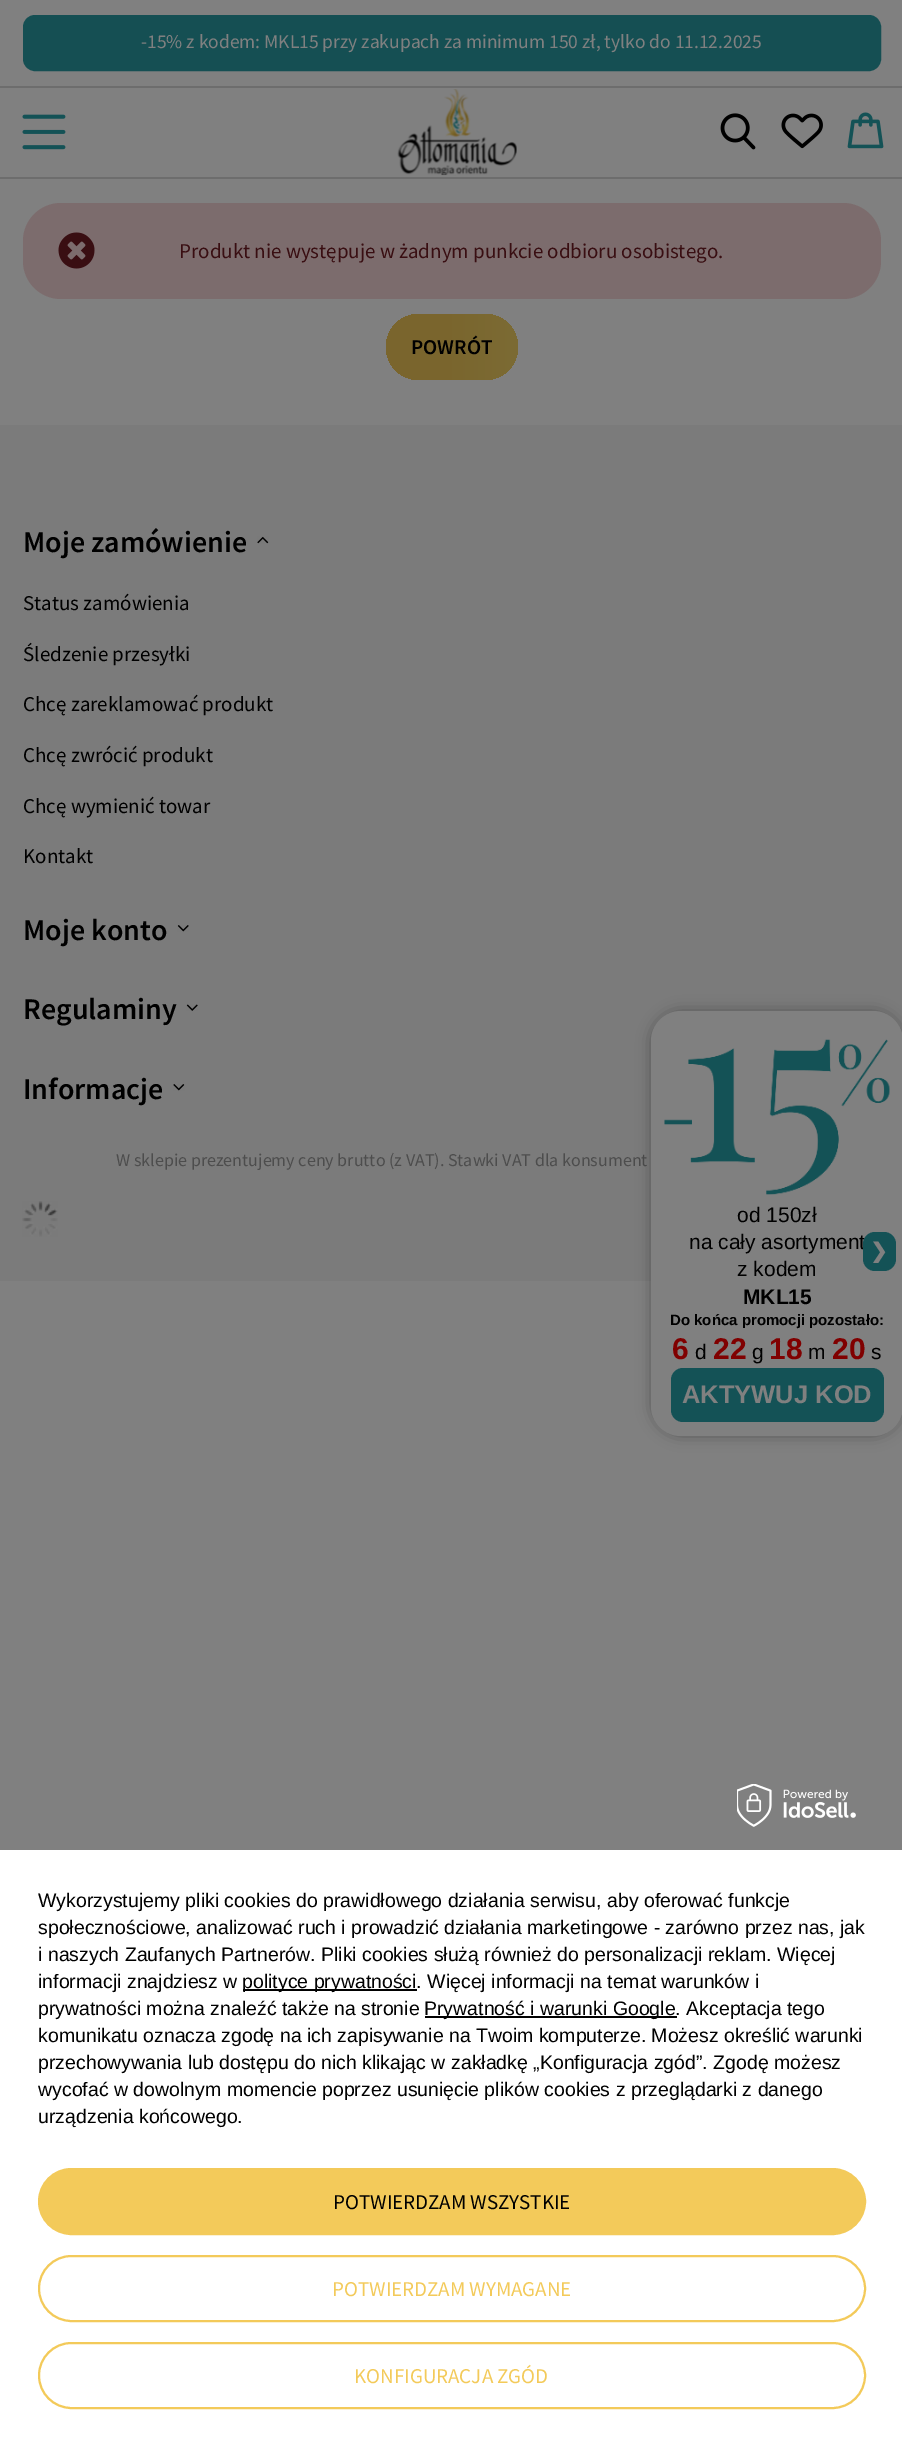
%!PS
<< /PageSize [902 2446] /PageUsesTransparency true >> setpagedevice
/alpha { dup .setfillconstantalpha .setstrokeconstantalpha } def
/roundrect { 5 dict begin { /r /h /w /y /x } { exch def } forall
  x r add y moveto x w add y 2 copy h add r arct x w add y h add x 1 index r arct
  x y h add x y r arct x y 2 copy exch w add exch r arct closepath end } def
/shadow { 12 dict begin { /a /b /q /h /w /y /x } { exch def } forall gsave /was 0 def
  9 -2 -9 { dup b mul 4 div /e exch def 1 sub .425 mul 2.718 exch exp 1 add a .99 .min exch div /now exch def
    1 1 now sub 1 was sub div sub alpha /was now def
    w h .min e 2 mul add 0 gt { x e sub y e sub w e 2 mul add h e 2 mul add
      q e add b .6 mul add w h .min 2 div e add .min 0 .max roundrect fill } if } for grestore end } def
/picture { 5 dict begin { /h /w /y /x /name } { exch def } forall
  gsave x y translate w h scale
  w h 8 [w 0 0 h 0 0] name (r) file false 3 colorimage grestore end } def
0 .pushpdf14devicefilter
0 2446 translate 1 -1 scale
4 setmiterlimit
0.502 setgray
0 0 902 2446 rectfill
0.427 setgray
0 177 902 2 rectfill
0 86 902 2 rectfill
0.082 0.31 0.325 setrgbcolor
24 16 856 54 11 roundrect gsave fill grestore
2 setlinewidth
stroke
/SourceSansPro-Regular [19.5 0 0 -19.5 0 0] selectfont
0.502 setgray
141 48 moveto (-15% z kodem: MKL15 przy zakupach za minimum 150 zł, tylko do 11.12.2025) show
(img1.rgb) 22 114 44 36 picture
(img2.rgb) 397 89 120 87 picture
(img3.rgb) 720 113 36 37 picture
(img4.rgb) 781 113 42 36 picture
(img5.rgb) 847 112 37 37 picture
0.486 0.424 0.427 setrgbcolor
23 203 858 96 38 roundrect fill
(img6.rgb) 58 232 37 37 picture
/SourceSansPro-Regular [21 0 0 -21 0 0] selectfont
0.224 0.055 0.071 setrgbcolor
179 258 moveto (Produkt nie występuje w żadnym punkcie odbioru osobistego.) show
gsave 386 314 132 66 33 roundrect clip newpath
<< /ShadingType 2 /ColorSpace /DeviceRGB /Coords [385 347 650 346] /Extend [true true] /Function << /FunctionType 3 /Domain [0 1] /Functions [<< /FunctionType 2 /Domain [0 1] /C0 [0.478 0.396 0.176] /C1 [0.478 0.396 0.176] /N 1 >> << /FunctionType 2 /Domain [0 1] /C0 [0.478 0.396 0.176] /C1 [0.502 0.459 0.247] /N 1 >>] /Bounds [0.21] /Encode [0 1 0 1] >> >> shfill grestore
/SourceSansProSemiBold-SemiBold [21 0 0 -21 0 0] selectfont
0 setgray
411 354 moveto (POWRÓT) show
0.482 setgray
0 425 902 856 rectfill
/SourceSansProSemiBold-SemiBold [30 0 0 -30 0 0] selectfont
0 setgray
23 552 moveto (Moje zamówienie) show
(img7.rgb) 257 536 12 8 picture
/SourceSansPro-Regular [21 0 0 -21 0 0] selectfont
23 610 moveto (Status zamówienia) show
23 661 moveto (Śledzenie przesyłki) show
23 711 moveto (Chcę zareklamować produkt) show
23 762 moveto (Chcę zwrócić produkt) show
23 813 moveto (Chcę wymienić towar) show
23 863 moveto (Kontakt) show
/SourceSansProSemiBold-SemiBold [30 0 0 -30 0 0] selectfont
23 940 moveto (Moje konto) show
(img8.rgb) 177 925 12 7 picture
23 1019 moveto (Regulaminy) show
(img9.rgb) 186 1004 12 7 picture
23 1099 moveto (Informacje) show
(img10.rgb) 173 1084 12 7 picture
/SourceSansPro-Regular [18 0 0 -18 0 0] selectfont
0.302 setgray
116 1166 moveto (W sklepie prezentujemy ceny brutto \(z VAT\). Stawki VAT dla konsument) show
(img11.rgb) 22 1201 36 36 picture
0 setgray
651 1011 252 425 30 7.5 0.3 shadow
0.502 setgray
651 1011 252 425 30 roundrect fill
(img12.rgb) 664 1039 226 156 picture
/LiberationSans-Regular [21 0 0 -21 0 0] selectfont
0 setgray
737 1222 moveto (od 150zł) show
689 1249 moveto (na cały asortyment) show
737 1276 moveto (z kodem) show
/LiberationSans-Bold [21 0 0 -21 0 0] selectfont
743 1304 moveto (MKL15) show
/LiberationSans-Bold [15 0 0 -15 0 0] selectfont
670 1325 moveto (Do końca promocji pozostało:) show
/LiberationSans-Bold [30 0 0 -30 0 0] selectfont
0.502 0 0 setrgbcolor
672 1359 moveto (6) show
/LiberationSans-Regular [21 0 0 -21 0 0] selectfont
0 setgray
695 1359 moveto (d) show
/LiberationSans-Bold [30 0 0 -30 0 0] selectfont
0.502 0 0 setrgbcolor
713 1359 moveto (22) show
/LiberationSans-Regular [21 0 0 -21 0 0] selectfont
0 setgray
752 1359 moveto (g) show
/LiberationSans-Bold [30 0 0 -30 0 0] selectfont
0.502 0 0 setrgbcolor
769 1359 moveto (18) show
/LiberationSans-Regular [21 0 0 -21 0 0] selectfont
0 setgray
808 1359 moveto (m) show
/LiberationSans-Bold [30 0 0 -30 0 0] selectfont
0.502 0 0 setrgbcolor
832 1359 moveto (20) show
/LiberationSans-Regular [21 0 0 -21 0 0] selectfont
0 setgray
871 1359 moveto (s) show
0.078 0.322 0.337 setrgbcolor
671 1368 213 54 12 roundrect fill
/LiberationSans-Bold [25.5 0 0 -25.5 0 0] selectfont
0.502 setgray
682 1403 moveto (AKTYWUJ KOD) show
0.078 0.322 0.337 setrgbcolor
863 1232 33 39 12 roundrect fill
/DejaVuSans-Bold [21 0 0 -21 0 0] selectfont
0.502 setgray
870 1258 moveto (❯) show
1 setgray
0 1850 902 596 rectfill
(img13.rgb) 737 1784 119 43 picture
/LiberationSans-Regular [19.5 0 0 -19.5 0 0] selectfont
0 setgray
38 1907 moveto (Wykorzystujemy pliki cookies do prawidłowego działania serwisu, aby oferować funkcje) show
38 1934 moveto (społecznościowe, analizować ruch i prowadzić działania marketingowe - zarówno przez nas, jak) show
38 1961 moveto (i naszych Zaufanych Partnerów. Pliki cookies służą również do personalizacji reklam. Więcej) show
38 1988 moveto (informacji znajdziesz w) show
243 1989 174 2 rectfill
242 1988 moveto (polityce prywatności. Więcej informacji na temat warunków i) show
38 2015 moveto (prywatności można znaleźć także na stronie) show
425 2016 252 2 rectfill
424 2015 moveto (Prywatność i warunki Google. Akceptacja tego) show
38 2042 moveto (komunikatu oznacza zgodę na ich zapisywanie na Twoim komputerze. Możesz określić warunki) show
38 2069 moveto (przechowywania lub dostępu do nich klikając w zakładkę „Konfiguracja zgód”. Zgodę możesz) show
38 2096 moveto (wycofać w dowolnym momencie poprzez usunięcie plików cookies z przeglądarki z danego) show
38 2123 moveto (urządzenia końcowego.) show
0.953 0.792 0.353 setrgbcolor
39 2169 826 65 32.5 roundrect gsave fill grestore
stroke
/SourceSansPro-Regular [21 0 0 -21 0 0] selectfont
0 setgray
333 2209 moveto (POTWIERDZAM WSZYSTKIE) show
0.953 0.792 0.353 setrgbcolor
39 2256 826 65 32.5 roundrect stroke
332 2296 moveto (POTWIERDZAM WYMAGANE) show
39 2343 826 65 32.5 roundrect stroke
354 2383 moveto (KONFIGURACJA ZGÓD) show
.poppdf14devicefilter showpage
